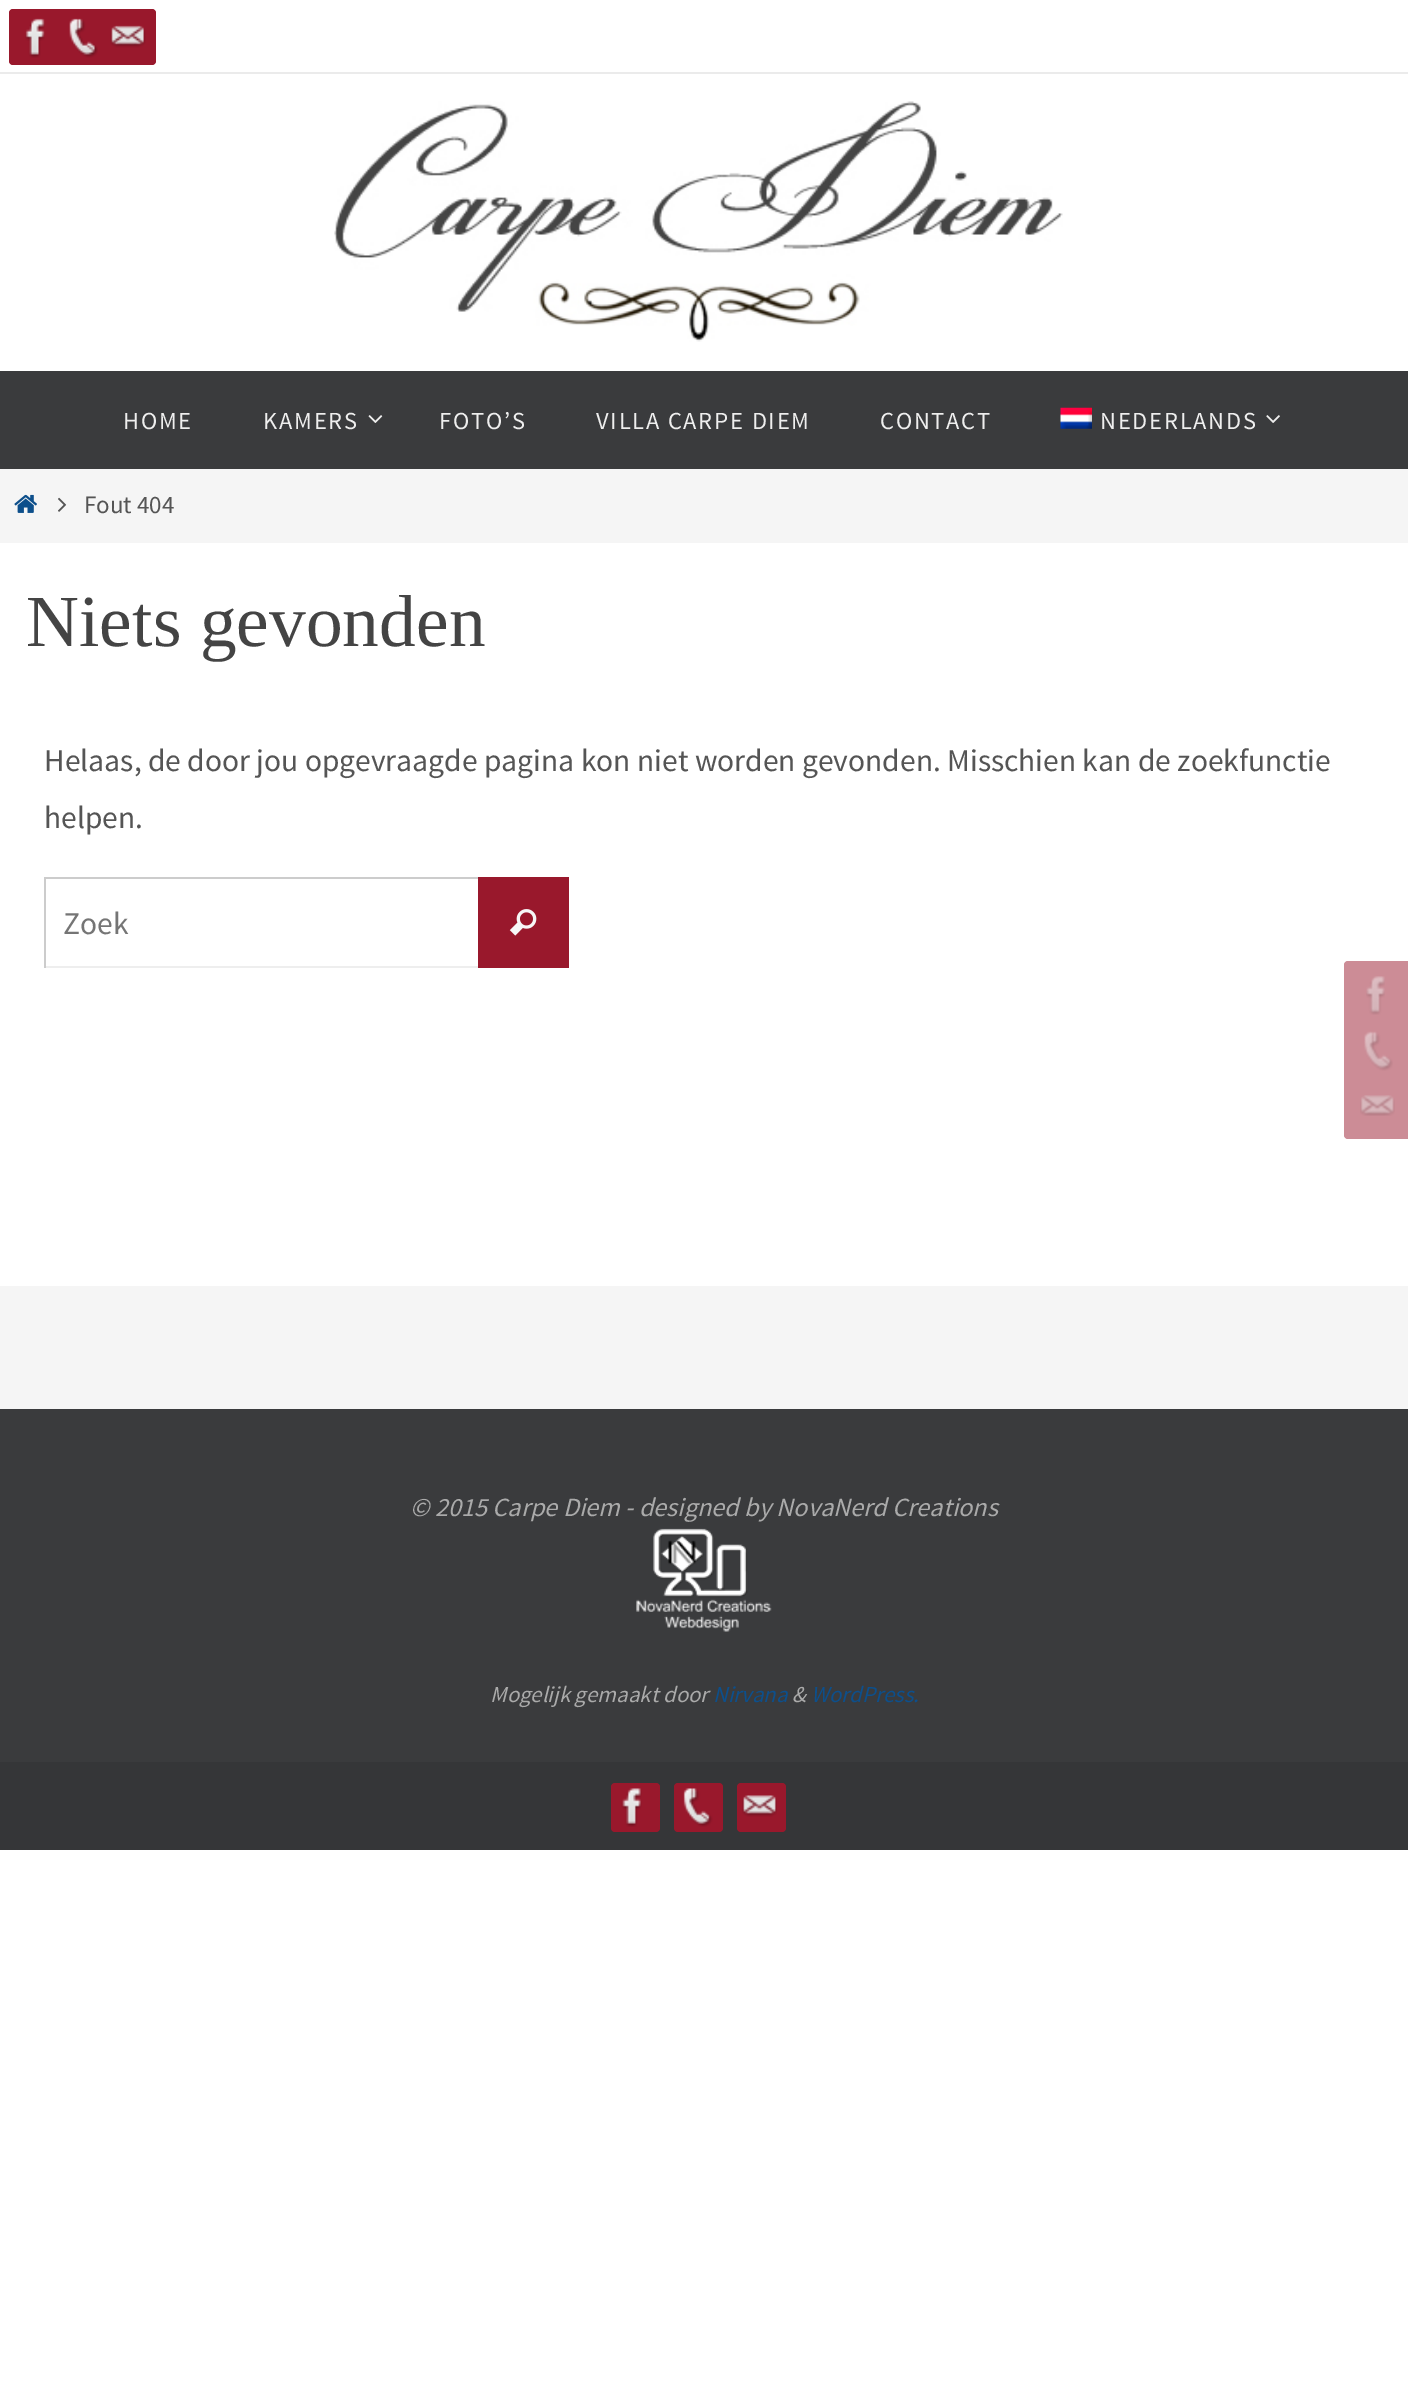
%!PS
<< /PageSize [1408 2404] >> setpagedevice
/roundrect { 5 dict begin { /r /h /w /y /x } { exch def } forall
  x r add y moveto x w add y 2 copy h add r arct x w add y h add x 1 index r arct
  x y h add x y r arct x y 2 copy exch w add exch r arct closepath end } def
/picture { 5 dict begin { /h /w /y /x /name } { exch def } forall
  gsave x y translate w h scale
  w h 8 [w 0 0 h 0 0] name (r) file false 3 colorimage grestore end } def
0 2404 translate 1 -1 scale
4 setmiterlimit
1 setgray
0 0 1408 2404 rectfill
0.922 setgray
0 72 1408 2 rectfill
0.6 0.094 0.173 setrgbcolor
9 9 56 56 4 roundrect fill
(img1.rgb) 25 18 20 40 picture
54 9 56 56 4 roundrect fill
(img2.rgb) 69 18 29 40 picture
100 9 56 56 4 roundrect fill
(img3.rgb) 110 25 36 23 picture
(img4.rgb) 334 101 729 241 picture
0.227 0.231 0.239 setrgbcolor
0 371 1408 98 rectfill
/SourceSansPro-Regular [24.5 0 0 -24.5 0 0] selectfont
0.933 setgray
123 429 moveto 1.75 0 (HOME) ashow
263 429 moveto 1.75 0 (KAMERS) ashow
(img5.rgb) 368 415 15 8 picture
439 429 moveto 1.75 0 (FOTO’S) ashow
596 429 moveto 1.75 0 (VILLA CARPE DIEM) ashow
880 429 moveto 1.75 0 (CONTACT) ashow
(img6.rgb) 1060 407 32 22 picture
1100 429 moveto 1.75 0 (NEDERLANDS) ashow
(img7.rgb) 1266 415 14 8 picture
0.961 setgray
0 469 1408 74 rectfill
(img8.rgb) 14 494 23 19 picture
(img9.rgb) 58 497 9 15 picture
/SourceSansPro-Regular [25 0 0 -25 0 0] selectfont
0.333 setgray
84 513 moveto (Fout 404) show
/LiberationSerif-Regular [73.5 0 0 -73.5 0 0] selectfont
0.267 setgray
26 646 moveto (Niets gevonden) show
/SourceSansPro-Regular [31.5 0 0 -31.5 0 0] selectfont
0.333 setgray
44 771 moveto (Helaas, de door jou opgevraagde pagina kon niet worden gevonden. Misschien kan de zoekfunctie) show
44 828 moveto (helpen.) show
0.6 0.094 0.173 setrgbcolor
478 877 91 91 rectfill
0.8 setgray
44 877 434 2 rectfill
0.933 setgray
44 966 434 2 rectfill
0.8 setgray
44 877 2 91 rectfill
0.459 setgray
63 934 moveto (Zoek) show
(img10.rgb) 509 909 28 27 picture
0.961 setgray
0 1286 1408 123 rectfill
0.227 0.231 0.239 setrgbcolor
0 1409 1408 353 rectfill
/SourceSansPro-Italic [26.25 0 0 -26.25 0 0] selectfont
0.667 setgray
410 1516 moveto (© 2015 Carpe Diem - designed by NovaNerd Creations) show
(img11.rgb) 636 1528 136 104 picture
/SourceSansPro-Italic [22.75 0 0 -22.75 0 0] selectfont
490 1702 moveto (Mogelijk gemaakt door) show
0.051 0.31 0.545 setrgbcolor
713 1702 moveto (Nirvana) show
0.667 setgray
792 1702 moveto (&) show
0.051 0.31 0.545 setrgbcolor
811 1702 moveto (WordPress.) show
0.208 0.212 0.22 setrgbcolor
0 1762 1408 88 rectfill
0.6 0.094 0.173 setrgbcolor
611 1783 49 49 4 roundrect fill
(img12.rgb) 621 1788 21 39 picture
674 1783 49 49 4 roundrect fill
(img13.rgb) 683 1788 30 39 picture
737 1783 49 49 4 roundrect fill
(img14.rgb) 742 1795 35 22 picture
0.8 0.549 0.588 setrgbcolor
1344 961 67 66 4 roundrect fill
(img15.rgb) 1366 976 19 39 picture
1344 1017 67 66 4 roundrect fill
(img16.rgb) 1364 1031 29 40 picture
1344 1073 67 66 4 roundrect fill
(img17.rgb) 1360 1095 35 21 picture
showpage
